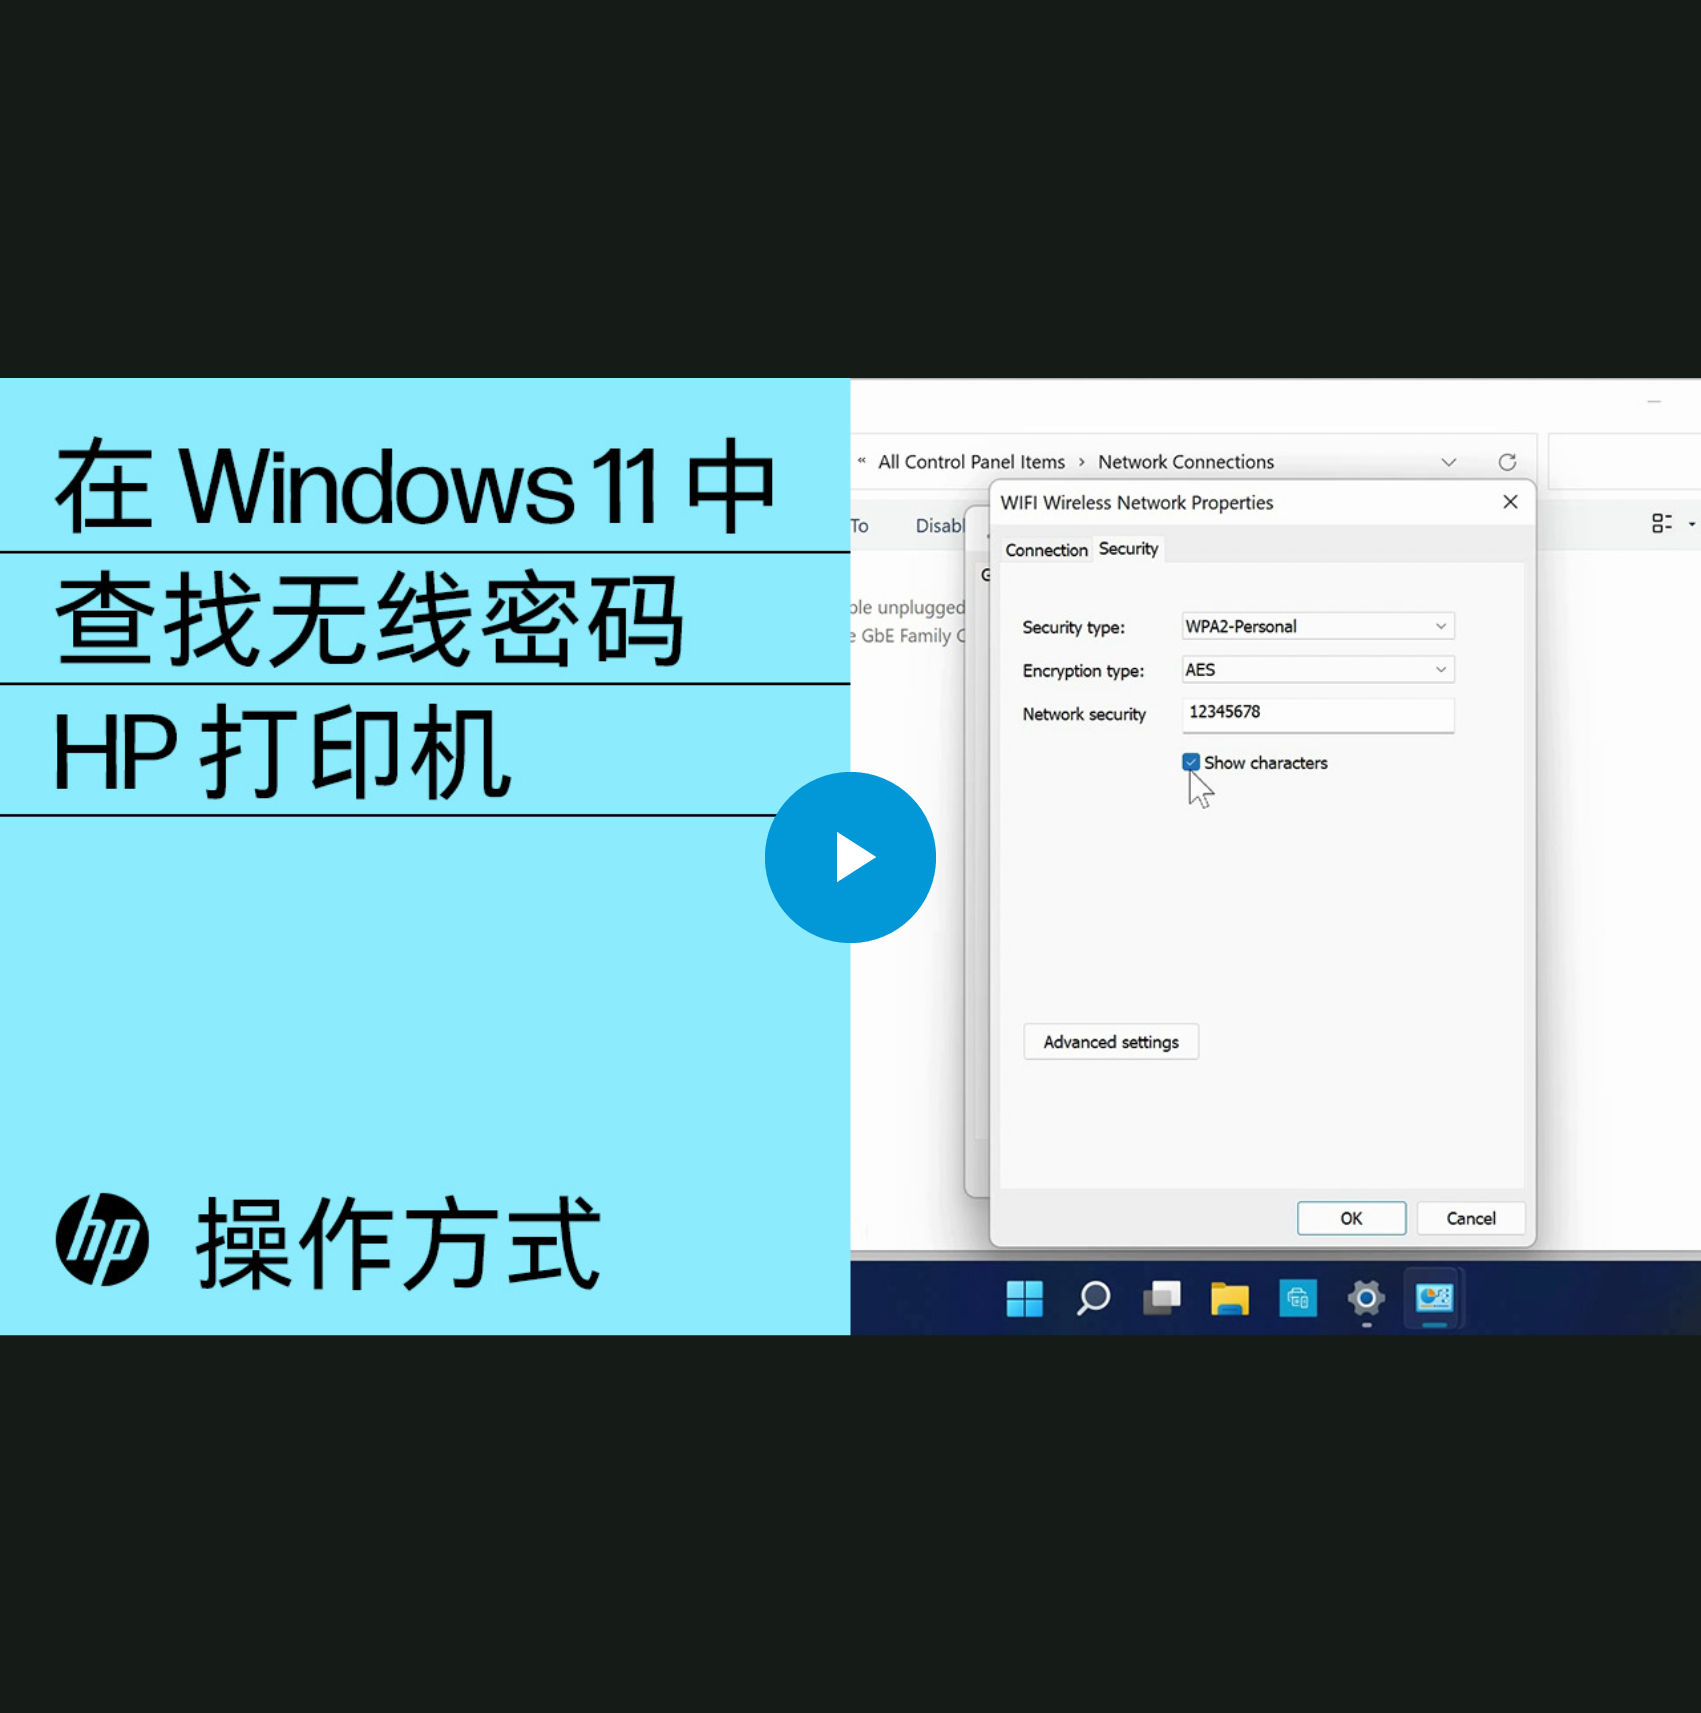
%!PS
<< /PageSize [1701 1713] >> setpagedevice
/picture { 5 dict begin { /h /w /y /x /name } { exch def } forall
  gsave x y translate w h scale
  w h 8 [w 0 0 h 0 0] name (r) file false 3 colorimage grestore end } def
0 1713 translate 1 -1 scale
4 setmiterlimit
0.082 0.106 0.09 setrgbcolor
0 0 1701 1713 rectfill
(img1.rgb) 0 378 1701 958 picture
0.008 0.592 0.839 setrgbcolor
newpath 850.5 857.5 85.5 0 360 arc closepath fill
1 setgray
newpath 837 832 moveto 837 882 lineto 876 857 lineto closepath fill
showpage
